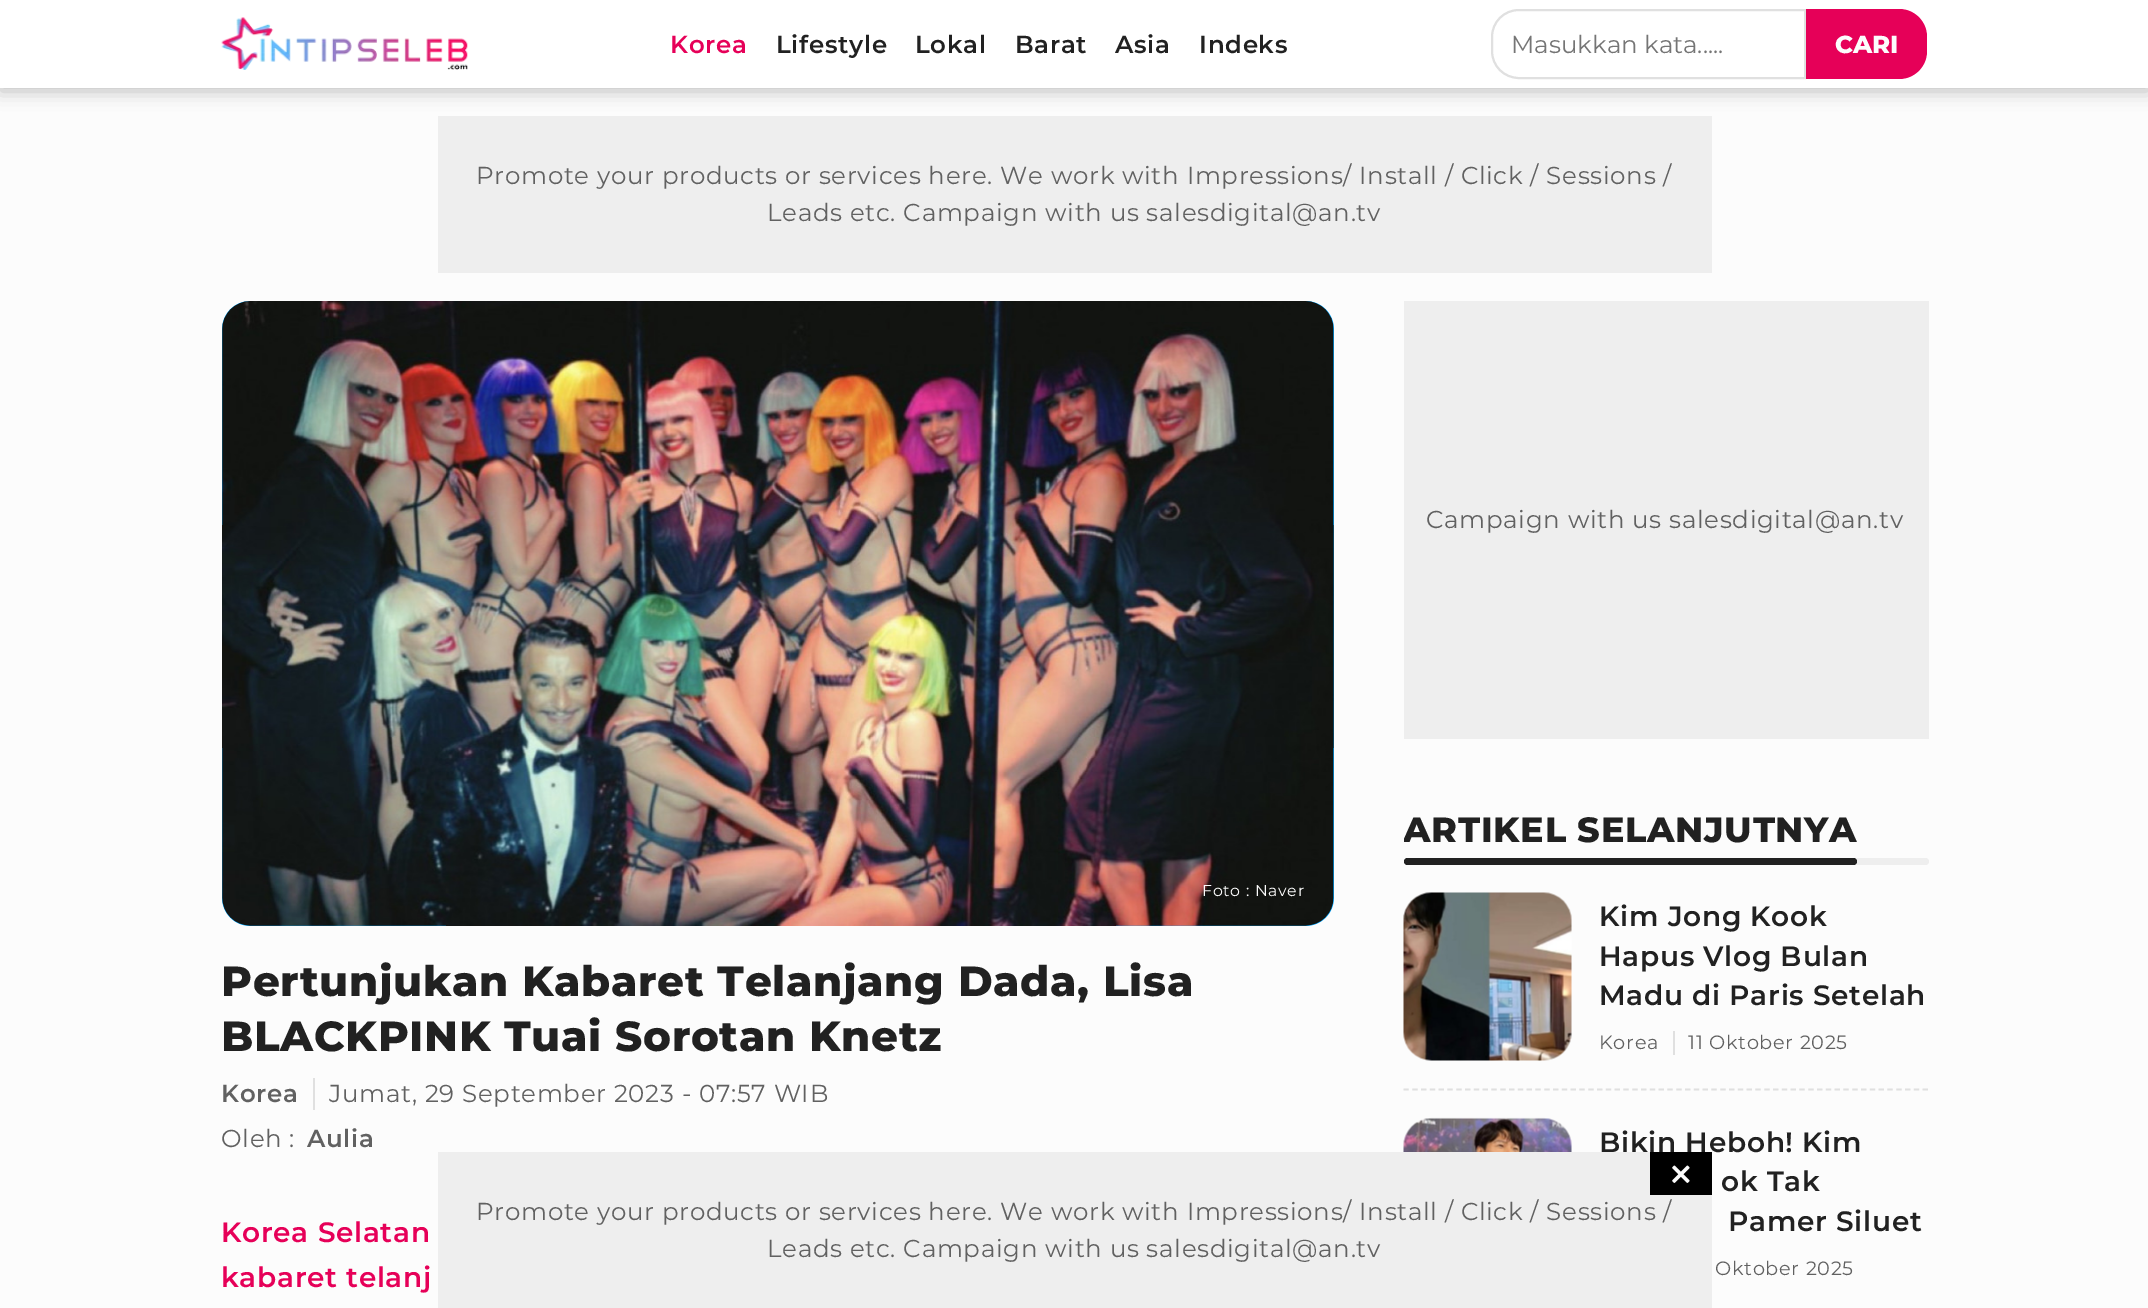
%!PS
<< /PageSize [2148 1308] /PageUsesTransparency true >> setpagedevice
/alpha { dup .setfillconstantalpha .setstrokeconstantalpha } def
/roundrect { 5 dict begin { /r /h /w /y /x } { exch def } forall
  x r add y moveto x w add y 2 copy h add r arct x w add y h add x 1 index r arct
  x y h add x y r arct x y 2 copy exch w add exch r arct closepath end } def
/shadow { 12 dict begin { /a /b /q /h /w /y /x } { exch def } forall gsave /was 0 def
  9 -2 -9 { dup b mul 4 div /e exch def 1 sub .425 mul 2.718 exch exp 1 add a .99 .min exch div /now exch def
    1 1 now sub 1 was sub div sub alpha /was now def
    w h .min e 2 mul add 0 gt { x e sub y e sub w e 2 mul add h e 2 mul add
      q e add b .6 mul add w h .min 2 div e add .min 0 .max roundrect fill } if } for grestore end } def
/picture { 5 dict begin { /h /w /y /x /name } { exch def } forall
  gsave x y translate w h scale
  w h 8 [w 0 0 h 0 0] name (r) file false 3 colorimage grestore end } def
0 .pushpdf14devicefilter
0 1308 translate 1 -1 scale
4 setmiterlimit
0.988 setgray
0 0 2148 1308 rectfill
0.933 setgray
438 116 1274 157 rectfill
0 setgray
0 4 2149 87 0 9 0.25 shadow
1 setgray
0 0 2148 88 rectfill
(img1.rgb) 221 17 247 53 picture
/Montserrat-SemiBold [24.5 0 0 -24.5 0 0] selectfont
0.902 0 0.345 setrgbcolor
670 53 moveto 0.7 0 (Korea) ashow
0.129 setgray
776 53 moveto 0.7 0 (Lifestyle) ashow
915 53 moveto 0.7 0 (Lokal) ashow
1015 53 moveto 0.7 0 (Barat) ashow
1115 53 moveto 0.7 0 (Asia) ashow
1199 53 moveto 0.7 0 (Indeks) ashow
0.878 setgray
2 setlinewidth
newpath 1519 10 moveto 1805 10 lineto 1805 78 lineto 1519 78 lineto 1504 78 1492 66 1492 51 curveto 1492 37 lineto 1492 22 1504 10 1519 10 curveto closepath stroke
/Montserrat-Regular [24.5 0 0 -24.5 0 0] selectfont
0.459 setgray
1511 53 moveto (Masukkan kata.....) show
0.902 0 0.345 setrgbcolor
newpath 1806 9 moveto 1899 9 lineto 1914.5 9 1927 21.5 1927 37 curveto 1927 51 lineto 1927 66.5 1914.5 79 1899 79 curveto 1806 79 lineto closepath fill
/Montserrat-ExtraBold [24.5 0 0 -24.5 0 0] selectfont
0.988 setgray
1835 53 moveto (CARI) show
/Montserrat-Regular [24.5 0 0 -24.5 0 0] selectfont
0.38 setgray
476 184 moveto 0.7 0 (Promote your products or services here. We work with Impressions/ Install / Click / Sessions /) ashow
767 221 moveto 0.7 0 (Leads etc. Campaign with us salesdigital@an.tv) ashow
0 0.651 1 setrgbcolor
222 301 1112 625 28 roundrect fill
(img2.rgb) 222 301 1112 625 picture
/Montserrat-Regular [15.75 0 0 -15.75 0 0] selectfont
0.988 setgray
1202 896 moveto 0.7 0 (Foto : Naver) ashow
/Montserrat-ExtraBold [42 0 0 -42 0 0] selectfont
0.129 setgray
221 996 moveto 0.7 0 (Pertunjukan Kabaret Telanjang Dada, Lisa) ashow
221 1051 moveto 0.7 0 (BLACKPINK Tuai Sorotan Knetz) ashow
0.878 setgray
313 1078 2 32 rectfill
/Montserrat-SemiBold [24.5 0 0 -24.5 0 0] selectfont
0.38 setgray
221 1102 moveto 0.7 0 (Korea) ashow
/Montserrat-Regular [24.5 0 0 -24.5 0 0] selectfont
329 1102 moveto 0.7 0 (Jumat, 29 September 2023 - 07:57 WIB) ashow
221 1147 moveto 0.7 0 (Oleh :) ashow
/Montserrat-SemiBold [24.5 0 0 -24.5 0 0] selectfont
307 1147 moveto 0.7 0 (Aulia) ashow
/Montserrat-SemiBold [28 0 0 -28 0 0] selectfont
0.902 0 0.345 setrgbcolor
221 1242 moveto 0.7 0 (Korea Selatan) ashow
221 1287 moveto 0.7 0 (kabaret) ashow
346 1287 moveto 0.7 0 (telanj) ashow
0.933 setgray
1404 301 525 438 rectfill
/Montserrat-Regular [24.5 0 0 -24.5 0 0] selectfont
0.38 setgray
1426 528 moveto 0.7 0 (Campaign with us salesdigital@an.tv) ashow
gsave
1404 809 453 56 rectclip
/Montserrat-ExtraBold [35 0 0 -35 0 0] selectfont
0.129 setgray
1403 842 moveto 0.7 0 (ARTIKEL SELANJUTNYA) ashow
grestore
0.933 setgray
1404 858 525 7 3.5 roundrect fill
0.129 setgray
1404 858 453 7 3.5 roundrect fill
0.878 setgray
1.8 setlinewidth
[5.25 3.55] 0 setdash
newpath 1403.5 1089.5 moveto 1928.5 1089.5 lineto stroke
(img3.rgb) 1403 892 169 169 picture
/Montserrat-SemiBold [28 0 0 -28 0 0] selectfont
0.129 setgray
1599 926 moveto 0.7 0 (Kim Jong Kook) ashow
1599 966 moveto 0.7 0 (Hapus Vlog Bulan) ashow
1599 1005 moveto 0.7 0 (Madu di Paris Setelah) ashow
0.878 setgray
1673 1031 2 24 rectfill
/Montserrat-Regular [19.25 0 0 -19.25 0 0] selectfont
0.38 setgray
1599 1049 moveto 0.7 0 (Korea) ashow
1688 1049 moveto 0.7 0 (11 Oktober 2025) ashow
(img4.rgb) 1403 1117 169 35 picture
/Montserrat-SemiBold [28 0 0 -28 0 0] selectfont
0.129 setgray
1599 1152 moveto 0.7 0 (Bikin Heboh! Kim) ashow
1721 1191 moveto 0.7 0 (ok Tak) ashow
1728 1231 moveto 0.7 0 (Pamer Siluet) ashow
/Montserrat-Regular [19.25 0 0 -19.25 0 0] selectfont
0.38 setgray
1715 1275 moveto 0.7 0 (Oktober 2025) ashow
0.933 setgray
438 1152 1274 156 rectfill
0 setgray
1650 1152 62 43 rectfill
(img5.rgb) 1672 1165 18 18 picture
/Montserrat-Regular [24.5 0 0 -24.5 0 0] selectfont
0.38 setgray
476 1220 moveto 0.7 0 (Promote your products or services here. We work with Impressions/ Install / Click / Sessions /) ashow
767 1257 moveto 0.7 0 (Leads etc. Campaign with us salesdigital@an.tv) ashow
.poppdf14devicefilter showpage
